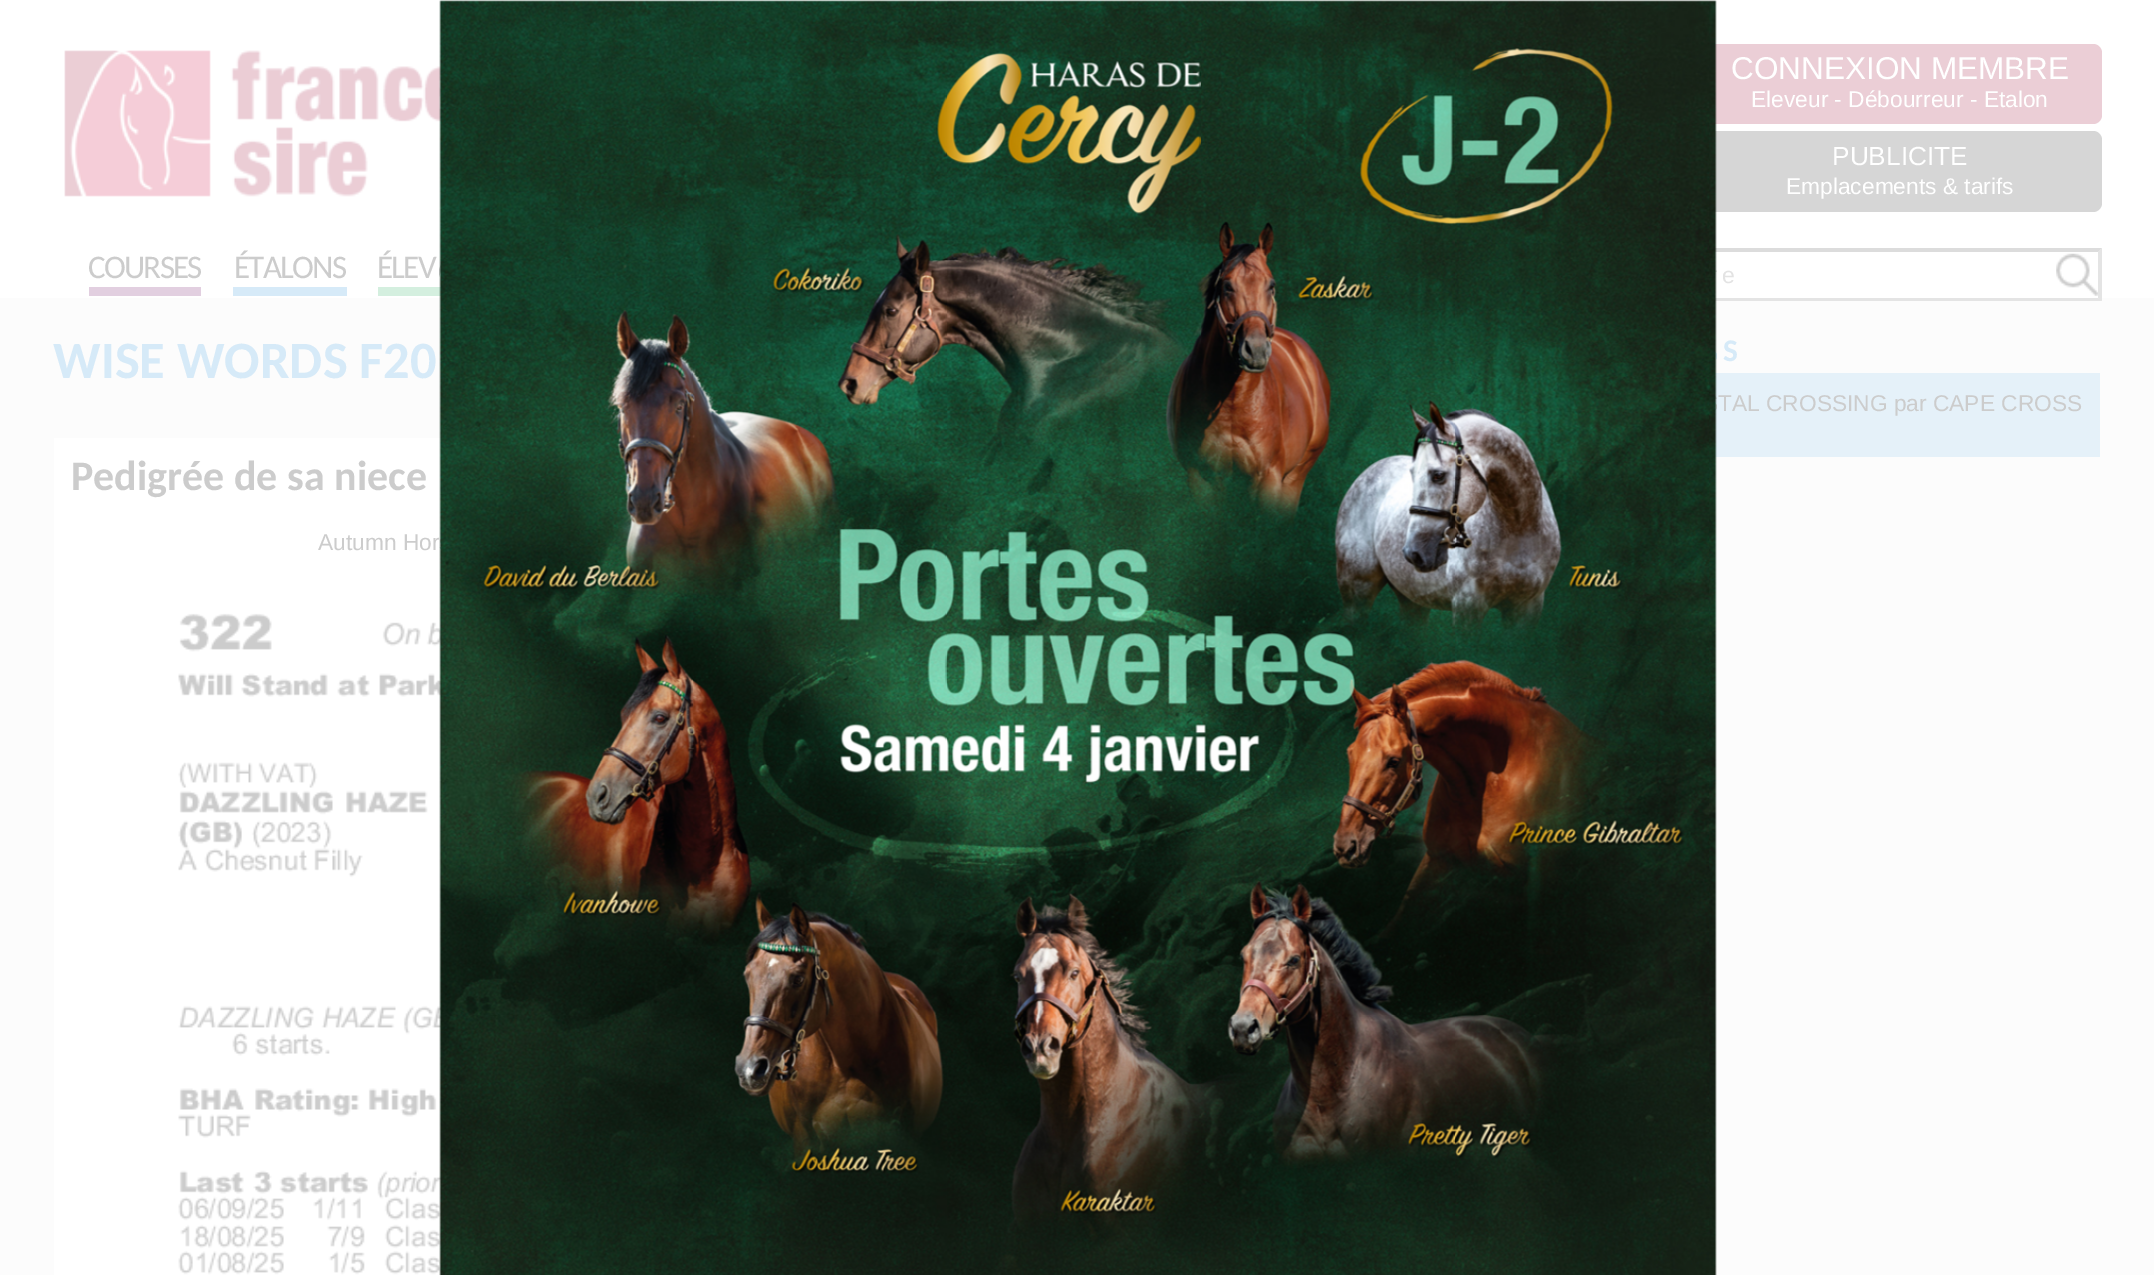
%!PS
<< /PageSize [2154 1275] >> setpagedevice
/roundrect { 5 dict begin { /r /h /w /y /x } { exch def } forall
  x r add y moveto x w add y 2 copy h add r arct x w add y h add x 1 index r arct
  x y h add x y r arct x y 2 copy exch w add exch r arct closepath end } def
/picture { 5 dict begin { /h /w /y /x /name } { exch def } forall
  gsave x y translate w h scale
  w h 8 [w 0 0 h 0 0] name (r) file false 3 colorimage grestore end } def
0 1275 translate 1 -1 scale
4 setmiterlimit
0.988 setgray
0 0 2154 1275 rectfill
1 setgray
0 0 2154 298 rectfill
(img2.rgb) 64 50 377 147 picture
0.922 0.808 0.839 setrgbcolor
1699 44 403 80 9 roundrect fill
0.839 setgray
1699 131 403 81 9 roundrect fill
0.831 0.937 0.875 setrgbcolor
378 287 63 9 rectfill
1 setgray
1715 298 387 3 rectfill
0.863 setgray
newpath 1563 248 moveto 2102 248 lineto 2098 252 lineto 1566 252 lineto closepath fill
0.894 setgray
newpath 2102 248 moveto 2102 301 lineto 2098 298 lineto 2098 252 lineto closepath fill
newpath 2102 301 moveto 1563 301 lineto 1566 298 lineto 2098 298 lineto closepath fill
1 setgray
54 438 387 837 rectfill
(img4.rgb) 178 613 263 662 picture
0.898 0.945 0.976 setrgbcolor
1715 373 385 84 rectfill
(img1.rgb) 439 0 1278 1275 picture
/LiberationSans-Regular [31.5 0 0 -31.5 0 0] selectfont
1 setgray
1731 79 moveto (CONNEXION MEMBRE) show
/LiberationSans-Regular [22.75 0 0 -22.75 0 0] selectfont
1751 107 moveto (Eleveur - Débourreur - Etalon) show
/LiberationSans-Regular [26.25 0 0 -26.25 0 0] selectfont
1832 165 moveto (PUBLICITE) show
/LiberationSans-Regular [22.75 0 0 -22.75 0 0] selectfont
1786 194 moveto (Emplacements & tarifs) show
/Carlito-Regular [33 0 0 -33 0 0] selectfont
0.8 setgray
88 278 moveto -1.75 0 (COURSES) ashow
0.886 0.812 0.878 setrgbcolor
89 287 112 9 rectfill
0.8 setgray
234 278 moveto -1.75 0 (ÉTALONS) ashow
0.839 0.918 0.973 setrgbcolor
233 287 114 9 rectfill
0.8 setgray
377 278 moveto -1.75 0 (ÉLEV) ashow
(img3.rgb) 2056 253 42 43 picture
/LiberationSans-Regular [23 0 0 -23 0 0] selectfont
0.89 setgray
1722 283 moveto (e) show
/Carlito-Bold [52.5 0 0 -52.5 0 0] selectfont
0.839 0.918 0.973 setrgbcolor
53 378 moveto (WISE WORDS F20) show
/Carlito-Bold [42 0 0 -42 0 0] selectfont
0.8 setgray
71 490 moveto (Pedigrée de sa niece) show
/LiberationSans-Regular [22.75 0 0 -22.75 0 0] selectfont
318 550 moveto (Autumn Hor) show
/Carlito-Bold [31.5 0 0 -31.5 0 0] selectfont
0.839 0.918 0.973 setrgbcolor
1723 361 moveto (S) show
/LiberationSans-Regular [22.75 0 0 -22.75 0 0] selectfont
0.8 setgray
1718 411 moveto (TAL CROSSING par CAPE CROSS) show
showpage
